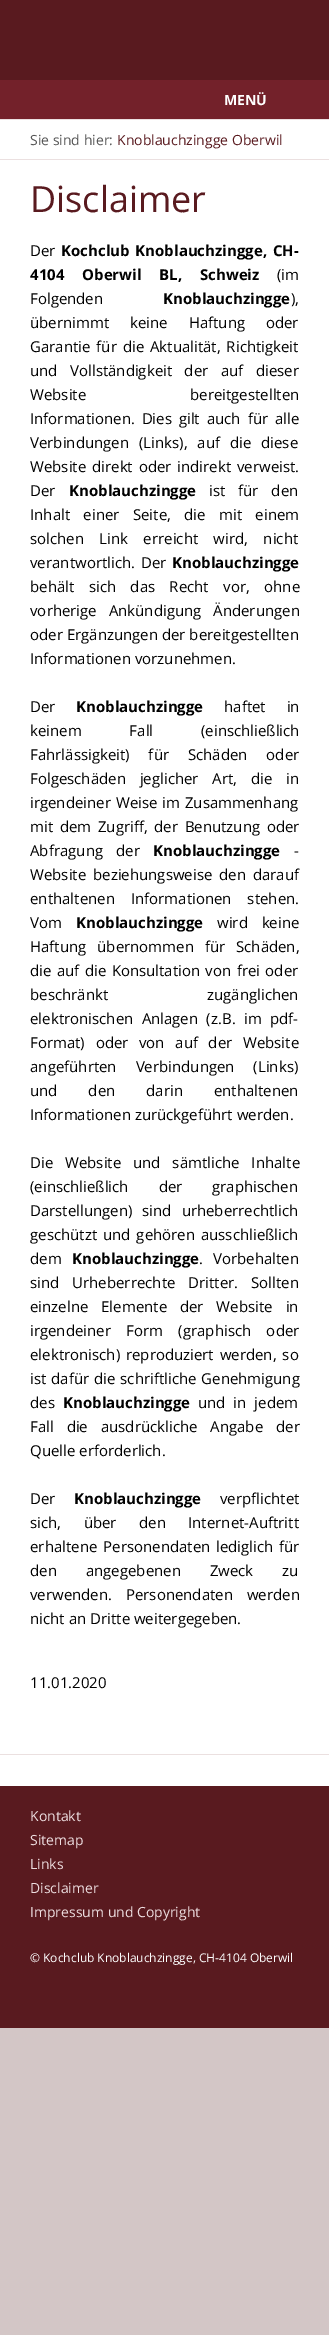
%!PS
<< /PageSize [329 2335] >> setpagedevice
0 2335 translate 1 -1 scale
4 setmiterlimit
0.827 0.776 0.776 setrgbcolor
0 0 329 2335 rectfill
0.349 0.102 0.122 setrgbcolor
0 0 329 80 rectfill
0.451 0.129 0.165 setrgbcolor
0 80 329 39 rectfill
/OpenSans-Bold [14 0 0 -14 0 0] selectfont
1 setgray
224 105 moveto (MENÜ) show
0.922 0.878 0.878 setrgbcolor
0 119 329 1 rectfill
1 setgray
0 120 329 39 rectfill
0.922 0.878 0.878 setrgbcolor
0 159 329 1 rectfill
/OpenSans-Regular [14 0 0 -14 0 0] selectfont
0.333 setgray
30 145 moveto (Sie sind hier:) show
0.349 0.102 0.122 setrgbcolor
117 145 moveto (Knoblauchzingge Oberwil) show
1 setgray
0 160 329 1626 rectfill
/OpenSans-Regular [36 0 0 -36 0 0] selectfont
0.349 0.102 0.122 setrgbcolor
30 212 moveto (Disclaimer) show
/OpenSans-Regular [15 0 0 -15 0 0] selectfont
0 setgray
30 256 moveto (Der) show
/OpenSans-Bold [15 0 0 -15 0 0] selectfont
61 256 moveto 2 0 32 (Kochclub Knoblauchzingge, CH-) widthshow
30 280 moveto 14 0 32 (4104 Oberwil BL, Schweiz) widthshow
/OpenSans-Regular [15 0 0 -15 0 0] selectfont
277 280 moveto (\(im) show
30 304 moveto (Folgenden) show
/OpenSans-Bold [15 0 0 -15 0 0] selectfont
163 304 moveto (Knoblauchzingge) show
/OpenSans-Regular [15 0 0 -15 0 0] selectfont
291 304 moveto (\),) show
30 328 moveto 17 0 32 (übernimmt keine Haftung oder) widthshow
30 352 moveto 2 0 32 (Garantie für die Aktualität, Richtigkeit) widthshow
30 376 moveto 8.5 0 32 (und Vollständigkeit der auf dieser) widthshow
30 400 moveto 100 0 32 (Website bereitgestellten) widthshow
30 424 moveto 3 0 32 (Informationen. Dies gilt auch für alle) widthshow
30 448 moveto 6 0 32 (Verbindungen \(Links\), auf die diese) widthshow
30 472 moveto 2 0 32 (Website direkt oder indirekt verweist.) widthshow
30 496 moveto (Der) show
/OpenSans-Bold [15 0 0 -15 0 0] selectfont
69 496 moveto (Knoblauchzingge) show
/OpenSans-Regular [15 0 0 -15 0 0] selectfont
209 496 moveto 9 0 32 (ist für den) widthshow
30 520 moveto 9.5 0 32 (Inhalt einer Seite, die mit einem) widthshow
30 544 moveto 11.5 0 32 (solchen Link erreicht wird, nicht) widthshow
30 568 moveto 2 0 32 (verantwortlich. Der) widthshow
/OpenSans-Bold [15 0 0 -15 0 0] selectfont
172 568 moveto (Knoblauchzingge) show
/OpenSans-Regular [15 0 0 -15 0 0] selectfont
30 592 moveto 10.5 0 32 (behält sich das Recht vor, ohne) widthshow
30 616 moveto 8 0 32 (vorherige Ankündigung Änderungen) widthshow
30 640 moveto (oder Ergänzungen der bereitgestellten) show
30 664 moveto (Informationen vorzunehmen.) show
30 712 moveto (Der) show
/OpenSans-Bold [15 0 0 -15 0 0] selectfont
76 712 moveto (Knoblauchzingge) show
/OpenSans-Regular [15 0 0 -15 0 0] selectfont
224 712 moveto 17 0 32 (haftet in) widthshow
30 736 moveto 44 0 32 (keinem Fall \(einschließlich) widthshow
30 760 moveto 15 0 32 (Fahrlässigkeit\) für Schäden oder) widthshow
30 784 moveto 10 0 32 (Folgeschäden jeglicher Art, die in) widthshow
30 808 moveto 1 0 32 (irgendeiner Weise im Zusammenhang) widthshow
30 832 moveto 2.75 0 32 (mit dem Zugriff, der Benutzung oder) widthshow
30 856 moveto 9.5 0 32 (Abfragung der) widthshow
/OpenSans-Bold [15 0 0 -15 0 0] selectfont
153 856 moveto (Knoblauchzingge) show
/OpenSans-Regular [15 0 0 -15 0 0] selectfont
294 856 moveto (-) show
30 880 moveto 3 0 32 (Website beziehungsweise den darauf) widthshow
30 904 moveto 12 0 32 (enthaltenen Informationen stehen.) widthshow
30 928 moveto (Vom) show
/OpenSans-Bold [15 0 0 -15 0 0] selectfont
76 928 moveto (Knoblauchzingge) show
/OpenSans-Regular [15 0 0 -15 0 0] selectfont
217 928 moveto 10 0 32 (wird keine) widthshow
30 952 moveto 7 0 32 (Haftung übernommen für Schäden,) widthshow
30 976 moveto 1.5 0 32 (die auf die Konsultation von frei oder) widthshow
30 1000 moveto 95 0 32 (beschränkt zugänglichen) widthshow
30 1024 moveto 4.5 0 32 (elektronischen Anlagen \(z.B. im pdf-) widthshow
30 1048 moveto 6.75 0 32 (Format\) oder von auf der Website) widthshow
30 1072 moveto 15 0 32 (angeführten Verbindungen \(Links\)) widthshow
30 1096 moveto 27 0 32 (und den darin enthaltenen) widthshow
30 1120 moveto (Informationen zurückgeführt werden.) show
30 1168 moveto 8 0 32 (Die Website und sämtliche Inhalte) widthshow
30 1192 moveto 26 0 32 (\(einschließlich der graphischen) widthshow
30 1216 moveto 6 0 32 (Darstellungen\) sind urheberrechtlich) widthshow
30 1240 moveto 2 0 32 (geschützt und gehören ausschließlich) widthshow
30 1264 moveto (dem) show
/OpenSans-Bold [15 0 0 -15 0 0] selectfont
72 1264 moveto (Knoblauchzingge) show
/OpenSans-Regular [15 0 0 -15 0 0] selectfont
199 1264 moveto 6 0 32 (. Vorbehalten) widthshow
30 1288 moveto 9 0 32 (sind Urheberrechte Dritter. Sollten) widthshow
30 1312 moveto 9 0 32 (einzelne Elemente der Website in) widthshow
30 1336 moveto 11.5 0 32 (irgendeiner Form \(graphisch oder) widthshow
30 1360 moveto 2 0 32 (elektronisch\) reproduziert werden, so) widthshow
30 1384 moveto 1 0 32 (ist dafür die schriftliche Genehmigung) widthshow
30 1408 moveto (des) show
/OpenSans-Bold [15 0 0 -15 0 0] selectfont
63 1408 moveto (Knoblauchzingge) show
/OpenSans-Regular [15 0 0 -15 0 0] selectfont
198 1408 moveto 4 0 32 (und in jedem) widthshow
30 1432 moveto 9 0 32 (Fall die ausdrückliche Angabe der) widthshow
30 1456 moveto (Quelle erforderlich.) show
30 1504 moveto (Der) show
/OpenSans-Bold [15 0 0 -15 0 0] selectfont
74 1504 moveto (Knoblauchzingge) show
/OpenSans-Regular [15 0 0 -15 0 0] selectfont
220 1504 moveto (verpflichtet) show
30 1528 moveto 18.5 0 32 (sich, über den Internet-Auftritt) widthshow
30 1552 moveto 2 0 32 (erhaltene Personendaten lediglich für) widthshow
30 1576 moveto 25 0 32 (den angegebenen Zweck zu) widthshow
30 1600 moveto 10 0 32 (verwenden. Personendaten werden) widthshow
30 1624 moveto (nicht an Dritte weitergegeben.) show
30 1688 moveto (11.01.2020) show
0.922 0.878 0.878 setrgbcolor
0 1754 329 1 rectfill
0.349 0.102 0.122 setrgbcolor
0 1786 329 242 rectfill
/OpenSans-Regular [14 0 0 -14 0 0] selectfont
0.925 0.863 0.871 setrgbcolor
30 1821 moveto (Kontakt) show
30 1845 moveto (Sitemap) show
30 1869 moveto (Links) show
30 1893 moveto (Disclaimer) show
30 1917 moveto (Impressum und Copyright) show
/OpenSans-Regular [12 0 0 -12 0 0] selectfont
1 setgray
30 1962 moveto (© Kochclub Knoblauchzingge, CH-4104 Oberwil) show
showpage
